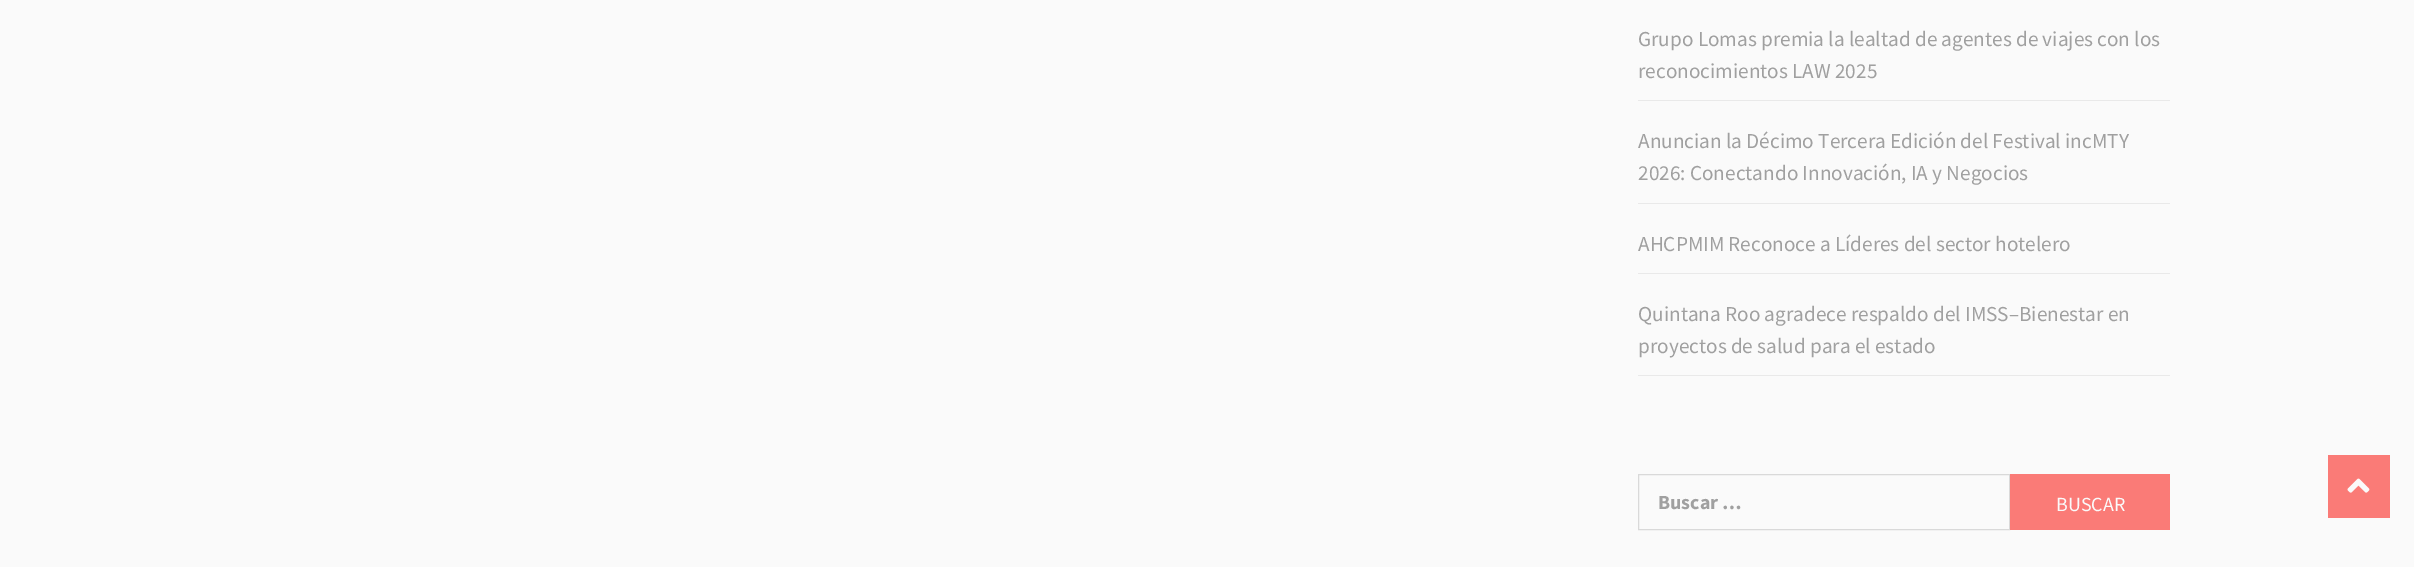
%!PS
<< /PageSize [2414 567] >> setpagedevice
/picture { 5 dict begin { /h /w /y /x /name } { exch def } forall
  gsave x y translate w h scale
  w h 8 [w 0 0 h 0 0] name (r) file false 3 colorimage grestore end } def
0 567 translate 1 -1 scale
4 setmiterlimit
0.98 setgray
0 0 2414 567 rectfill
0.914 setgray
1638 100 532 1 rectfill
/SourceSansPro-Regular [21.25 0 0 -21.25 0 0] selectfont
0.627 setgray
1638 46 moveto (Grupo Lomas premia la lealtad de agentes de viajes con los) show
1638 78 moveto (reconocimientos LAW 2025) show
0.914 setgray
1638 203 532 1 rectfill
0.627 setgray
1638 148 moveto (Anuncian la Décimo Tercera Edición del Festival incMTY) show
1638 180 moveto (2026: Conectando Innovación, IA y Negocios) show
0.914 setgray
1638 273 532 1 rectfill
0.627 setgray
1638 251 moveto (AHCPMIM Reconoce a Líderes del sector hotelero) show
0.914 setgray
1638 375 532 1 rectfill
0.627 setgray
1638 321 moveto (Quintana Roo agradece respaldo del IMSS–Bienestar en) show
1638 353 moveto (proyectos de salud para el estado) show
0.851 setgray
1638.5 474.5 371 55 rectstroke
/SourceSansPro-Bold [20 0 0 -20 0 0] selectfont
0.627 setgray
1658 509 moveto (Buscar …) show
0.98 0.482 0.467 setrgbcolor
2010 474 160 56 rectfill
/SourceSansPro-Regular [20 0 0 -20 0 0] selectfont
0.98 setgray
2056 511 moveto (BUSCAR) show
0.98 0.482 0.467 setrgbcolor
2328 455 62 63 rectfill
(img1.rgb) 2347 478 23 15 picture
showpage
